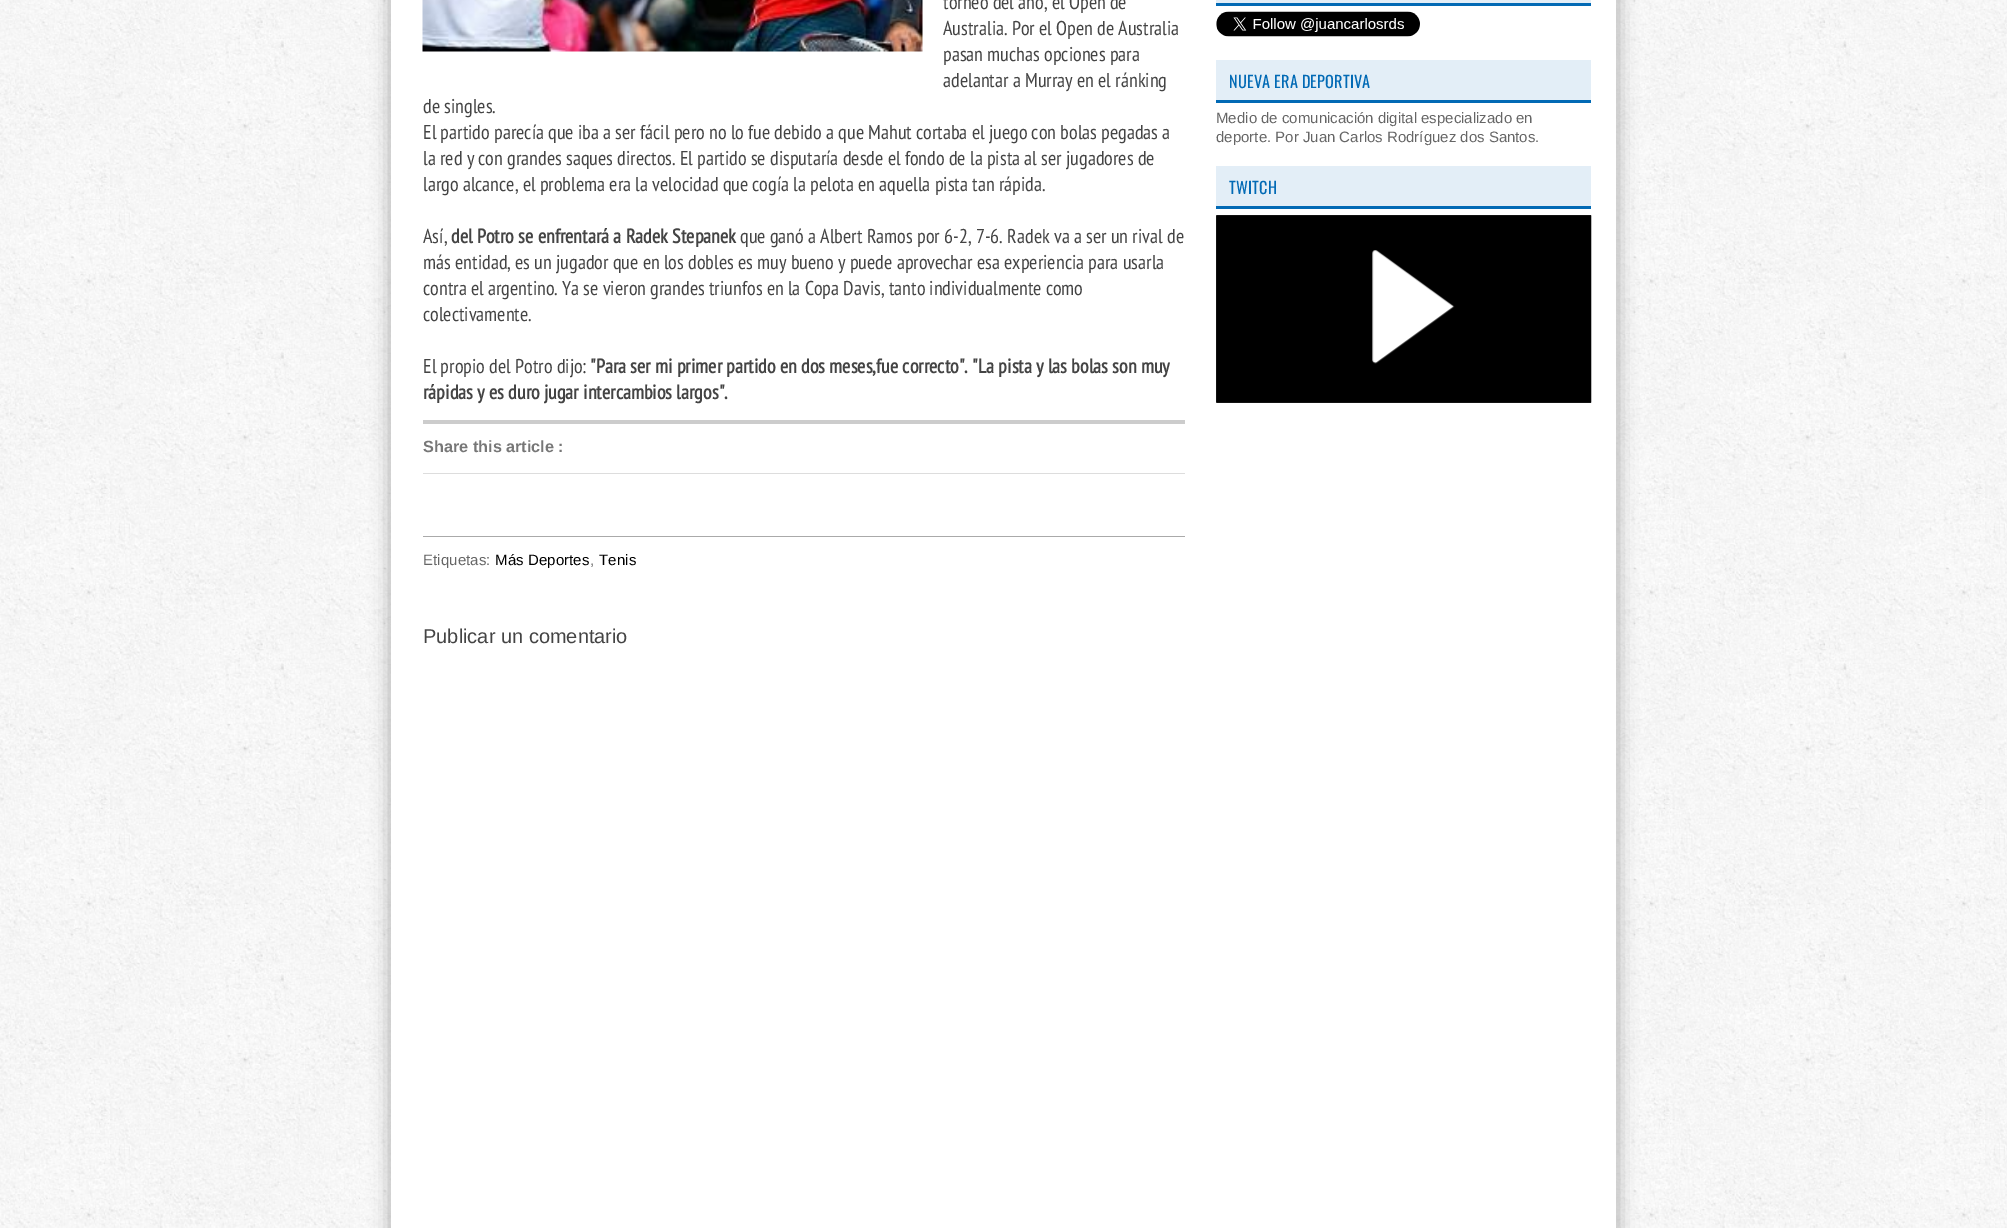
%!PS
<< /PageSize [2007 1228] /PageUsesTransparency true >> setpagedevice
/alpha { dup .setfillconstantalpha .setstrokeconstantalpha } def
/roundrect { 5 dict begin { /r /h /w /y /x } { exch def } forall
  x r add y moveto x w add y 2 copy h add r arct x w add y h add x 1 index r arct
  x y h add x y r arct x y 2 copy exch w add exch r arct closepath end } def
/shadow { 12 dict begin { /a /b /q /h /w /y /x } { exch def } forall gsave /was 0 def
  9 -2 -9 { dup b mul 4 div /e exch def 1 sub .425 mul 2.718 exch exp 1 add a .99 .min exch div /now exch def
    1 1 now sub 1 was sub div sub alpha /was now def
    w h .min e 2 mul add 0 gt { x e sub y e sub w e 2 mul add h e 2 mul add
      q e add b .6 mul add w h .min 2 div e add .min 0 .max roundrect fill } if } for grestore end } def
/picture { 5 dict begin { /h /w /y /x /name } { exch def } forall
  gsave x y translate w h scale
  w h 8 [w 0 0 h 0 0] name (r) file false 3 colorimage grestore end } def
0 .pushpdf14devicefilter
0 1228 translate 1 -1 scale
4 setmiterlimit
1 setgray
0 0 2007 1228 rectfill
(img1.rgb) 0 0 2007 1228 picture
0.667 setgray
390 -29 1228 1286 0 9.5 1 shadow
1 setgray
391 0 1225 1228 rectfill
(img2.rgb) 422 0 501 52 picture
/PTSansNarrow-Regular [20 0 0 -20 0 0] selectfont
0.267 setgray
943 9 moveto (torneo del año, el Open de) show
943 35 moveto (Australia. Por el Open de Australia) show
943 61 moveto (pasan muchas opciones para) show
943 87 moveto (adelantar a Murray en el ránking) show
423 113 moveto (de singles.) show
423 139 moveto (El partido parecía que iba a ser fácil pero no lo fue debido a que Mahut cortaba el juego con bolas pegadas a) show
423 165 moveto (la red y con grandes saques directos. El partido se disputaría desde el fondo de la pista al ser jugadores de) show
423 191 moveto (largo alcance, el problema era la velocidad que cogía la pelota en aquella pista tan rápida.) show
423 243 moveto (Así,) show
/PTSansNarrow-Bold [20 0 0 -20 0 0] selectfont
451 243 moveto (del Potro se enfrentará a Radek Stepanek) show
/PTSansNarrow-Regular [20 0 0 -20 0 0] selectfont
740 243 moveto (que ganó a Albert Ramos por 6-2, 7-6. Radek va a ser un rival de) show
423 269 moveto (más entidad, es un jugador que en los dobles es muy bueno y puede aprovechar esa experiencia para usarla) show
423 295 moveto (contra el argentino. Ya se vieron grandes triunfos en la Copa Davis, tanto individualmente como) show
423 321 moveto (colectivamente.) show
423 373 moveto (El propio del Potro dijo:) show
/PTSansNarrow-Bold [20 0 0 -20 0 0] selectfont
590 373 moveto ("Para ser mi primer partido en dos meses,fue correcto". "La pista y las bolas son muy) show
423 399 moveto (rápidas y es duro jugar intercambios largos".) show
0.8 setgray
423 420 762 4 rectfill
0.867 setgray
423 473 762 1 rectfill
/LiberationSans-Bold [16.25 0 0 -16.25 0 0] selectfont
0.467 setgray
423 452 moveto (Share this article :) show
0.667 setgray
423 536 762 1 rectfill
/LiberationSans-Regular [15 0 0 -15 0 0] selectfont
0.4 setgray
423 565 moveto 0.1 0 (Etiquetas:) ashow
0 setgray
495 565 moveto 0.1 0 (Más Deportes) ashow
0.4 setgray
590 565 moveto 0.1 0 (,) ashow
0 setgray
599 565 moveto 0.1 0 (Tenis) ashow
/LiberationSans-Regular [20 0 0 -20 0 0] selectfont
0.267 setgray
423 643 moveto (Publicar un comentario) show
0.89 0.933 0.969 setrgbcolor
1216 0 375 3 rectfill
0.008 0.416 0.71 setrgbcolor
1216 3 375 3 rectfill
(img3.rgb) 1216 11 204 26 picture
0.89 0.933 0.969 setrgbcolor
1216 60 375 40 rectfill
0.008 0.416 0.71 setrgbcolor
1216 100 375 3 rectfill
/Oswald-Regular [16.25 0 0 -16.25 0 0] selectfont
1229 88 moveto 0.2 0 (NUEVA ERA DEPORTIVA) ashow
/LiberationSans-Regular [15 0 0 -15 0 0] selectfont
0.4 setgray
1216 123 moveto (Medio de comunicación digital especializado en) show
1216 142 moveto (deporte. Por Juan Carlos Rodríguez dos Santos.) show
0.89 0.933 0.969 setrgbcolor
1216 166 375 40 rectfill
0.008 0.416 0.71 setrgbcolor
1216 206 375 3 rectfill
/Oswald-Regular [16.25 0 0 -16.25 0 0] selectfont
1229 194 moveto 0.2 0 (TWITCH) ashow
(img4.rgb) 1216 215 376 188 picture
.poppdf14devicefilter showpage
